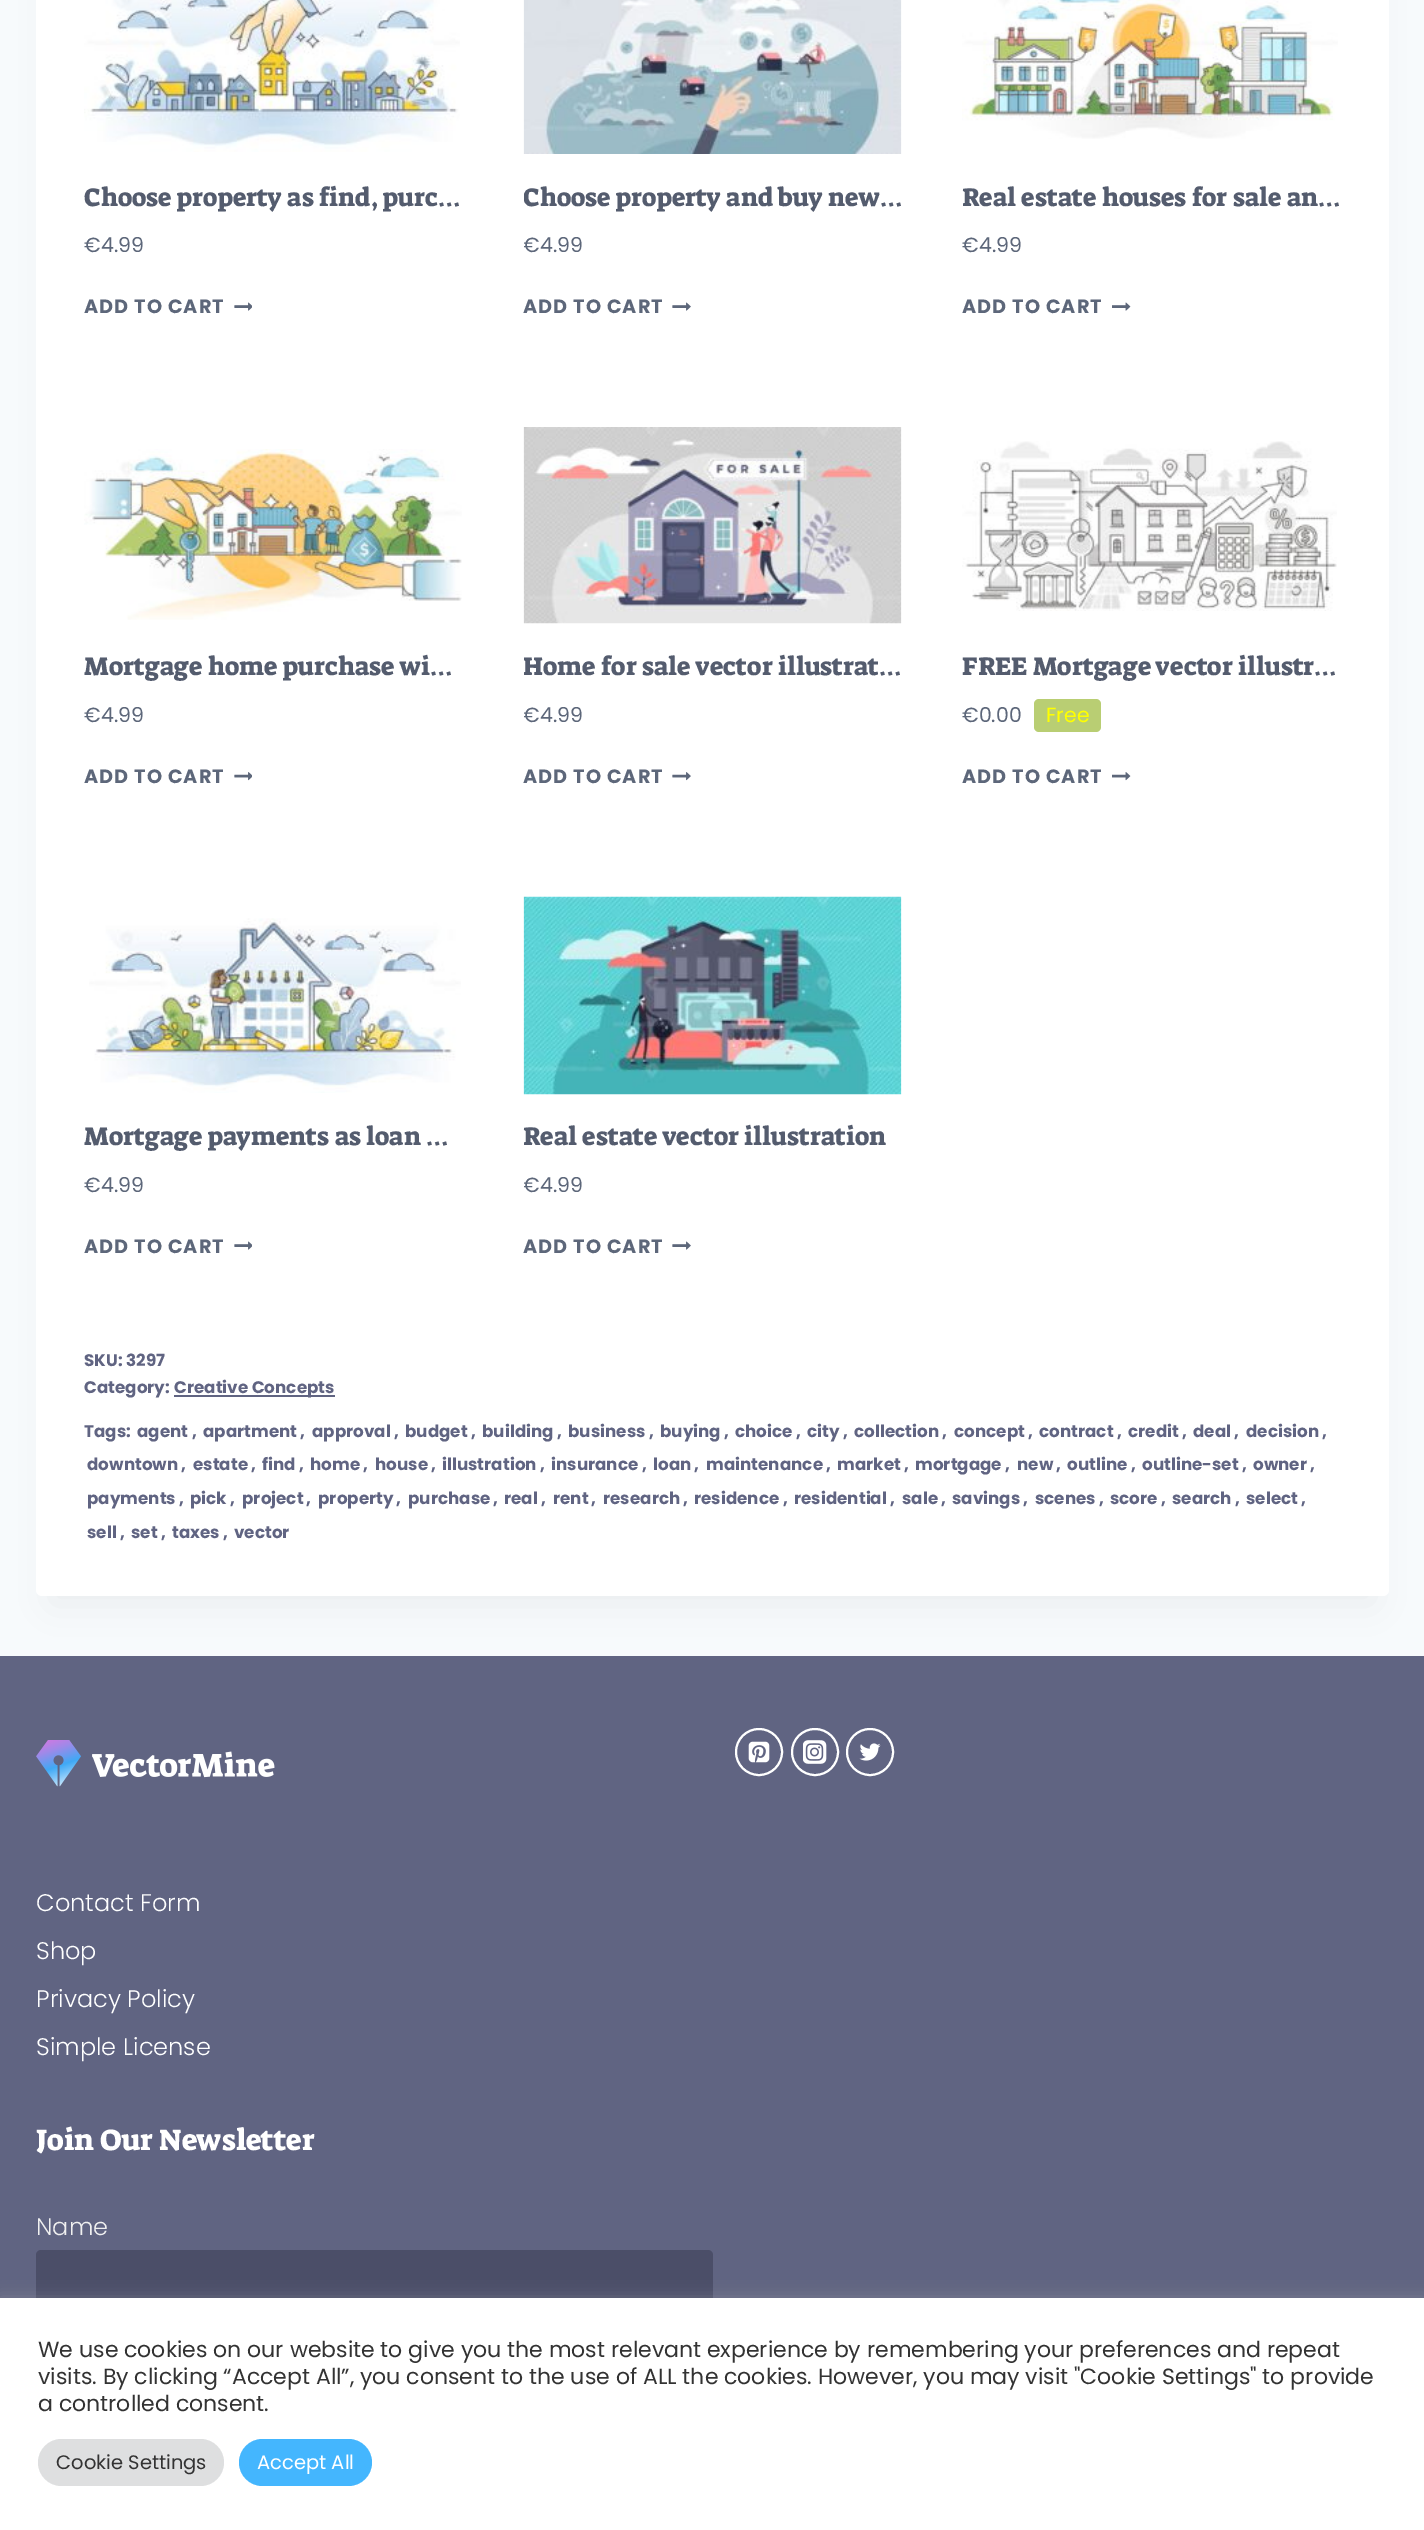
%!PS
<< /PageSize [1424 2530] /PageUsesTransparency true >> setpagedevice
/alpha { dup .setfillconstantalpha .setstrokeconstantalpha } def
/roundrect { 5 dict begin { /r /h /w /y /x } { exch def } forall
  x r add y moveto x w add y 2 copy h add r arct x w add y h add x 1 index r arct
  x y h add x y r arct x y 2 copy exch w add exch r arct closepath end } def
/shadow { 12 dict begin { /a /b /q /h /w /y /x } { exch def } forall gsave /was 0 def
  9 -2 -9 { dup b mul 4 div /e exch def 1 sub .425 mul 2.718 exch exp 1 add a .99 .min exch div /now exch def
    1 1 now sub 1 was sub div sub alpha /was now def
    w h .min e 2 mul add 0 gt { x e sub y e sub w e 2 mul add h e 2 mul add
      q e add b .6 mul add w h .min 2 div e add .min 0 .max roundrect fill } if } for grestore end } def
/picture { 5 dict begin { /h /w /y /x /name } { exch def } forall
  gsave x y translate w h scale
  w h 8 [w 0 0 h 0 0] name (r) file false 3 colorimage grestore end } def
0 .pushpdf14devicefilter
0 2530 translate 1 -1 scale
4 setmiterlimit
0.969 0.98 0.988 setrgbcolor
0 0 1424 2530 rectfill
0.376 0.392 0.51 setrgbcolor
0 1656 1424 642 rectfill
0 setgray
51 -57 1323 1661 0 19 0.05 shadow
1 setgray
36 -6 1353 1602 6 roundrect fill
(img1.rgb) 84 0 376 152 picture
/SuezOne-Regular [25.9 0 0 -25.9 0 0] selectfont
0.329 0.361 0.431 setrgbcolor
84 206 moveto (Choose property as find, purc…) show
/Poppins-Regular [20.5 0 0 -20.5 0 0] selectfont
0.365 0.404 0.478 setrgbcolor
84 252 moveto (€4.99) show
/Poppins-Bold [19.25 0 0 -19.25 0 0] selectfont
84 313 moveto 1 0 (ADD TO CART) ashow
(img2.rgb) 234 302 18 9 picture
(img3.rgb) 523 0 379 154 picture
gsave
524 -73 378 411 6 roundrect clip newpath
/SuezOne-Regular [25.9 0 0 -25.9 0 0] selectfont
0.329 0.361 0.431 setrgbcolor
523 206 moveto (Choose property and buy new…) show
/Poppins-Regular [20.5 0 0 -20.5 0 0] selectfont
0.365 0.404 0.478 setrgbcolor
523 252 moveto (€) show
grestore
/Poppins-Regular [20.5 0 0 -20.5 0 0] selectfont
540 252 moveto (4.99) show
/Poppins-Bold [19.25 0 0 -19.25 0 0] selectfont
523 313 moveto 1 0 (ADD TO CART) ashow
(img4.rgb) 672 302 19 9 picture
(img5.rgb) 962 0 376 139 picture
/SuezOne-Regular [25.9 0 0 -25.9 0 0] selectfont
0.329 0.361 0.431 setrgbcolor
962 206 moveto (Real estate houses for sale an…) show
/Poppins-Regular [20.5 0 0 -20.5 0 0] selectfont
0.365 0.404 0.478 setrgbcolor
962 252 moveto (€4.99) show
/Poppins-Bold [19.25 0 0 -19.25 0 0] selectfont
962 313 moveto 1 0 (ADD TO CART) ashow
(img6.rgb) 1112 302 19 9 picture
(img7.rgb) 84 449 378 171 picture
/SuezOne-Regular [25.9 0 0 -25.9 0 0] selectfont
0.329 0.361 0.431 setrgbcolor
84 675 moveto (Mortgage home purchase wi…) show
/Poppins-Regular [20.5 0 0 -20.5 0 0] selectfont
0.365 0.404 0.478 setrgbcolor
84 722 moveto (€4.99) show
/Poppins-Bold [19.25 0 0 -19.25 0 0] selectfont
84 783 moveto 1 0 (ADD TO CART) ashow
(img8.rgb) 234 772 18 9 picture
(img9.rgb) 523 427 379 197 picture
gsave
524 398 378 409 6 roundrect clip newpath
/SuezOne-Regular [25.9 0 0 -25.9 0 0] selectfont
0.329 0.361 0.431 setrgbcolor
523 675 moveto (Home for sale vector illustrat…) show
/Poppins-Regular [20.5 0 0 -20.5 0 0] selectfont
0.365 0.404 0.478 setrgbcolor
523 722 moveto (€) show
grestore
/Poppins-Regular [20.5 0 0 -20.5 0 0] selectfont
540 722 moveto (4.99) show
/Poppins-Bold [19.25 0 0 -19.25 0 0] selectfont
523 783 moveto 1 0 (ADD TO CART) ashow
(img10.rgb) 672 772 19 9 picture
(img11.rgb) 962 441 375 170 picture
/SuezOne-Regular [25.9 0 0 -25.9 0 0] selectfont
0.329 0.361 0.431 setrgbcolor
962 675 moveto (FREE Mortgage vector illustr…) show
/Poppins-Regular [20.5 0 0 -20.5 0 0] selectfont
0.365 0.404 0.478 setrgbcolor
962 722 moveto (€0.00) show
0.725 0.808 0.451 setrgbcolor
1034 699 67 33 5 roundrect fill
1 1 0 setrgbcolor
1046 722 moveto (Free) show
/Poppins-Bold [19.25 0 0 -19.25 0 0] selectfont
0.365 0.404 0.478 setrgbcolor
962 783 moveto 1 0 (ADD TO CART) ashow
(img12.rgb) 1112 772 19 9 picture
(img13.rgb) 89 918 372 175 picture
/SuezOne-Regular [25.9 0 0 -25.9 0 0] selectfont
0.329 0.361 0.431 setrgbcolor
84 1145 moveto (Mortgage payments as loan …) show
/Poppins-Regular [20.5 0 0 -20.5 0 0] selectfont
0.365 0.404 0.478 setrgbcolor
84 1192 moveto (€4.99) show
/Poppins-Bold [19.25 0 0 -19.25 0 0] selectfont
84 1253 moveto 1 0 (ADD TO CART) ashow
(img2.rgb) 234 1241 18 9 picture
(img14.rgb) 523 896 379 199 picture
/SuezOne-Regular [25.9 0 0 -25.9 0 0] selectfont
0.329 0.361 0.431 setrgbcolor
523 1145 moveto (Real estate vector illustration) show
gsave
524 867 378 410 6 roundrect clip newpath
/Poppins-Regular [20.5 0 0 -20.5 0 0] selectfont
0.365 0.404 0.478 setrgbcolor
523 1192 moveto (€) show
grestore
/Poppins-Regular [20.5 0 0 -20.5 0 0] selectfont
0.365 0.404 0.478 setrgbcolor
540 1192 moveto (4.99) show
/Poppins-Bold [19.25 0 0 -19.25 0 0] selectfont
523 1253 moveto 1 0 (ADD TO CART) ashow
(img4.rgb) 672 1241 19 9 picture
/Poppins-Bold [16.75 0 0 -16.75 0 0] selectfont
0.376 0.392 0.51 setrgbcolor
84 1366 moveto (SKU: 3297) show
84 1393 moveto (Category:) show
174 1395 161 2 rectfill
174 1393 moveto (Creative Concepts) show
84 1437 moveto (Tags:) show
137 1437 moveto (agent) show
192 1437 moveto (,) show
203 1437 moveto (apartment) show
300 1437 moveto (,) show
312 1437 moveto (approval) show
394 1437 moveto (,) show
405 1437 moveto (budget) show
471 1437 moveto (,) show
482 1437 moveto (building) show
557 1437 moveto (,) show
568 1437 moveto (business) show
649 1437 moveto (,) show
660 1437 moveto (buying) show
724 1437 moveto (,) show
735 1437 moveto (choice) show
796 1437 moveto (,) show
807 1437 moveto (city) show
843 1437 moveto (,) show
854 1437 moveto (collection) show
942 1437 moveto (,) show
954 1437 moveto (concept) show
1028 1437 moveto (,) show
1039 1437 moveto (contract) show
1117 1437 moveto (,) show
1128 1437 moveto (credit) show
1182 1437 moveto (,) show
1193 1437 moveto (deal) show
1234 1437 moveto (,) show
1246 1437 moveto (decision) show
1322 1437 moveto (,) show
87 1470 moveto (downtown) show
181 1470 moveto (,) show
193 1470 moveto (estate) show
251 1470 moveto (,) show
262 1470 moveto (find) show
299 1470 moveto (,) show
310 1470 moveto (home) show
363 1470 moveto (,) show
375 1470 moveto (house) show
431 1470 moveto (,) show
442 1470 moveto (illustration) show
540 1470 moveto (,) show
551 1470 moveto (insurance) show
642 1470 moveto (,) show
653 1470 moveto (loan) show
694 1470 moveto (,) show
706 1470 moveto (maintenance) show
826 1470 moveto (,) show
837 1470 moveto (market) show
904 1470 moveto (,) show
915 1470 moveto (mortgage) show
1005 1470 moveto (,) show
1017 1470 moveto (new) show
1056 1470 moveto (,) show
1067 1470 moveto (outline) show
1131 1470 moveto (,) show
1142 1470 moveto (outline-set) show
1242 1470 moveto (,) show
1253 1470 moveto (owner) show
1310 1470 moveto (,) show
87 1504 moveto (payments) show
179 1504 moveto (,) show
190 1504 moveto (pick) show
230 1504 moveto (,) show
242 1504 moveto (project) show
306 1504 moveto (,) show
318 1504 moveto (property) show
396 1504 moveto (,) show
408 1504 moveto (purchase) show
493 1504 moveto (,) show
504 1504 moveto (real) show
541 1504 moveto (,) show
553 1504 moveto (rent) show
591 1504 moveto (,) show
603 1504 moveto (research) show
683 1504 moveto (,) show
694 1504 moveto (residence) show
783 1504 moveto (,) show
794 1504 moveto (residential) show
890 1504 moveto (,) show
902 1504 moveto (sale) show
941 1504 moveto (,) show
952 1504 moveto (savings) show
1023 1504 moveto (,) show
1035 1504 moveto (scenes) show
1099 1504 moveto (,) show
1110 1504 moveto (score) show
1161 1504 moveto (,) show
1172 1504 moveto (search) show
1235 1504 moveto (,) show
1246 1504 moveto (select) show
1301 1504 moveto (,) show
87 1538 moveto (sell) show
120 1538 moveto (,) show
131 1538 moveto (set) show
161 1538 moveto (,) show
172 1538 moveto (taxes) show
223 1538 moveto (,) show
234 1538 moveto (vector) show
(img15.rgb) 36 1740 239 47 picture
1 setgray
2 setlinewidth
newpath 759 1752 23 0 360 arc closepath stroke
(img16.rgb) 748 1741 22 22 picture
newpath 815 1752 23 0 360 arc closepath stroke
(img17.rgb) 803 1740 24 24 picture
newpath 870 1752 23 0 360 arc closepath stroke
(img18.rgb) 859 1743 22 18 picture
/Poppins-Light [24 0 0 -24 0 0] selectfont
36 1911 moveto (Contact Form) show
36 1959 moveto (Shop) show
36 2007 moveto (Privacy Policy) show
36 2055 moveto (Simple License) show
/SuezOne-Regular [30 0 0 -30 0 0] selectfont
36 2150 moveto (Join Our Newsletter) show
/Poppins-Light [24 0 0 -24 0 0] selectfont
0.941 setgray
36 2235 moveto (Name) show
0.294 0.306 0.408 setrgbcolor
36 2250 677 54 5 roundrect fill
0.675 0.671 0.671 setrgbcolor
0 2297 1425 232 0 7.5 0.3 shadow
1 setgray
0 2298 1424 232 rectfill
/Poppins-Regular [22 0 0 -22 0 0] selectfont
0.2 setgray
38 2357 moveto (We use cookies on our website to give you the most relevant experience by remembering your preferences and repeat) show
38 2384 moveto (visits. By clicking “Accept All”, you consent to the use of ALL the cookies. However, you may visit "Cookie Settings" to provide) show
38 2411 moveto (a controlled consent.) show
0.871 0.875 0.878 setrgbcolor
38 2439 186 47 23.5 roundrect fill
/Poppins-Regular [19.5 0 0 -19.5 0 0] selectfont
0.2 setgray
56 2469 moveto (Cookie Settings) show
0.267 0.714 0.996 setrgbcolor
239 2439 133 47 23.5 roundrect fill
1 setgray
257 2469 moveto (Accept All) show
.poppdf14devicefilter showpage
